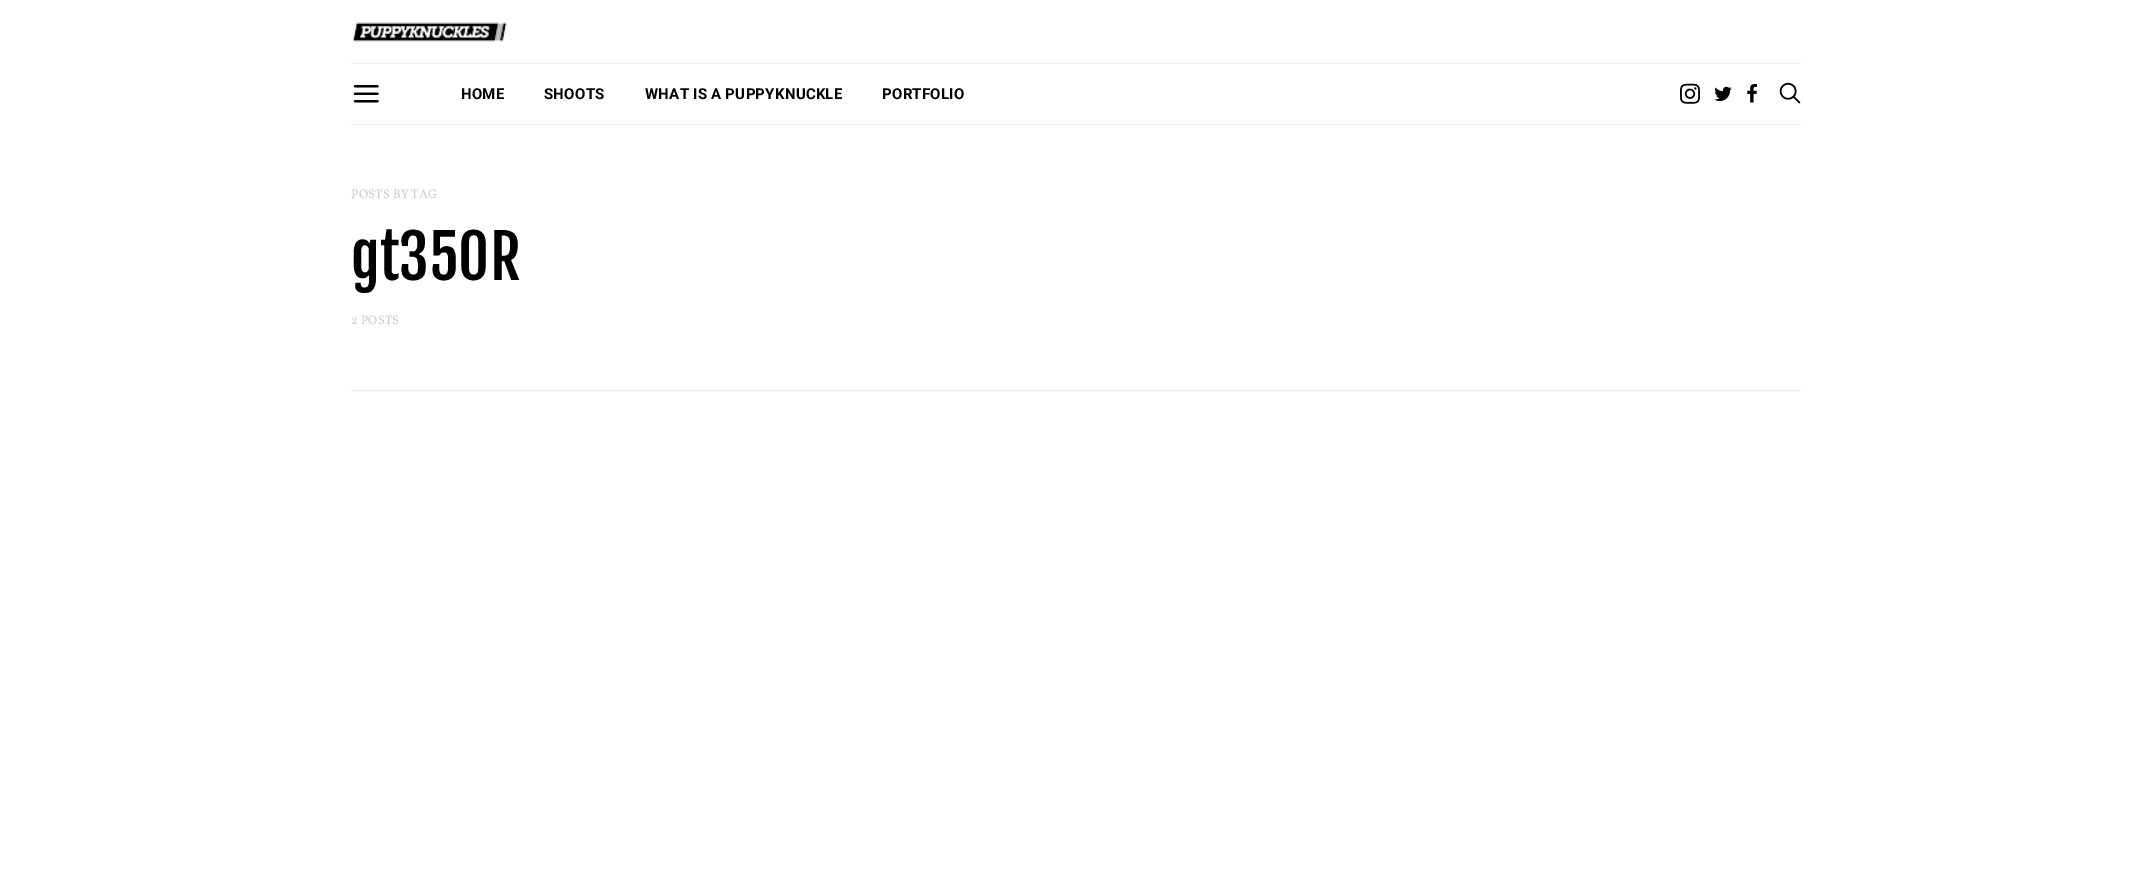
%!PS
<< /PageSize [2151 881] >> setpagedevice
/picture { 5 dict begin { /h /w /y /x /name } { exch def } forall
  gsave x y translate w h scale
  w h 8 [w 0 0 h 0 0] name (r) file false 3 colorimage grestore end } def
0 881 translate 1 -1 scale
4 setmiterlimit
1 setgray
0 0 2151 881 rectfill
(img1.rgb) 352 22 155 20 picture
0.933 setgray
351 63 1450 1 rectfill
351 124 1450 1 rectfill
(img2.rgb) 353 85 26 18 picture
/Roboto-Bold [15 0 0 -15 0 0] selectfont
0 setgray
461 99 moveto 0.25 0 (HOME) ashow
544 99 moveto 0.25 0 (SHOOTS) ashow
645 99 moveto 0.25 0 (WHAT IS A PUPPYKNUCKLE) ashow
882 99 moveto 0.25 0 (PORTFOLIO) ashow
(img3.rgb) 1680 83 20 21 picture
(img4.rgb) 1714 86 18 16 picture
(img5.rgb) 1747 83 10 20 picture
(img6.rgb) 1779 82 22 22 picture
/Vollkorn-Regular [12.5 0 0 -12.5 0 0] selectfont
0.788 setgray
351 198 moveto 0.25 0 (POSTS BY TAG) ashow
/FjallaOne-Regular [60 0 0 -60 0 0] selectfont
0 setgray
351 280 moveto (gt350R) show
/Vollkorn-Regular [12.5 0 0 -12.5 0 0] selectfont
0.788 setgray
351 324 moveto 0.25 0 (2 POSTS) ashow
0.914 0.925 0.937 setrgbcolor
351 390 1450 1 rectfill
showpage
